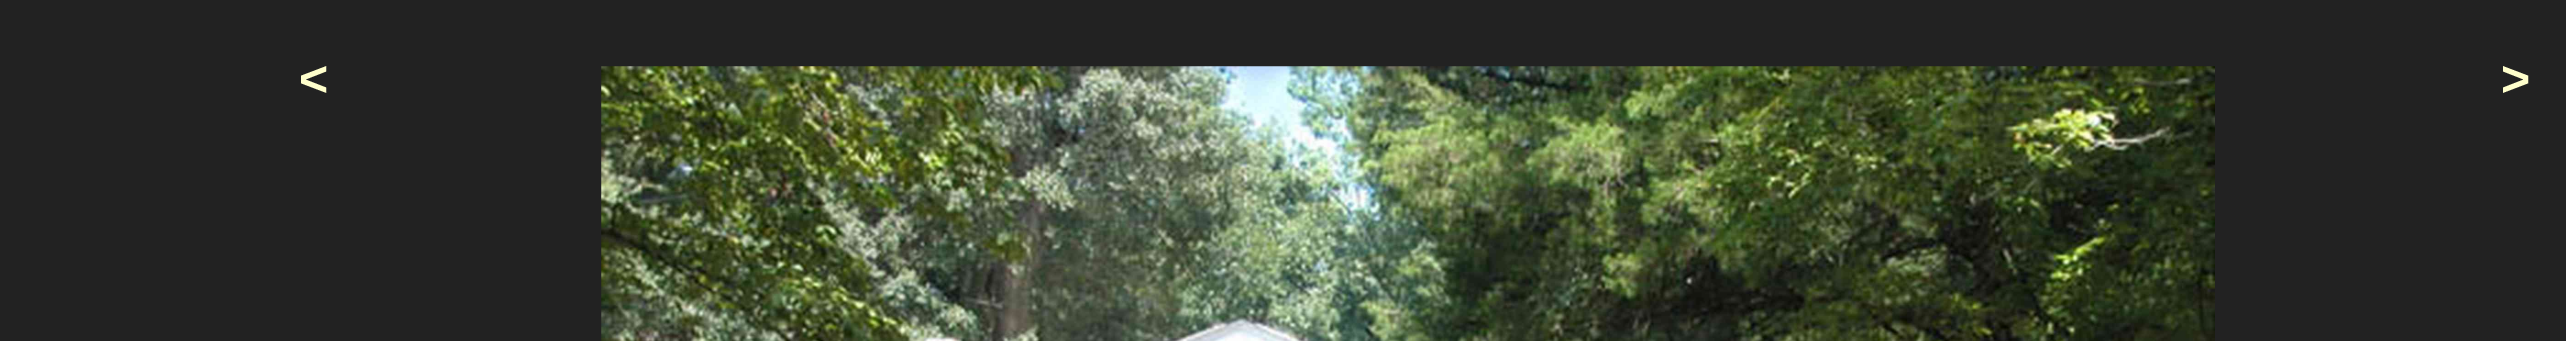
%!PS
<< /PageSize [2566 341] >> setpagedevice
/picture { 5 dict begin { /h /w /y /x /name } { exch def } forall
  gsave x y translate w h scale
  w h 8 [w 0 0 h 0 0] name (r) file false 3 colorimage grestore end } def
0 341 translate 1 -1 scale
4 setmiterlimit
0.133 setgray
0 0 2566 341 rectfill
/LiberationSans-Bold [50 0 0 -50 0 0] selectfont
1 1 0.8 setrgbcolor
299 96 moveto (<) show
(img1.rgb) 601 66 1614 275 picture
2501 96 moveto (>) show
showpage
